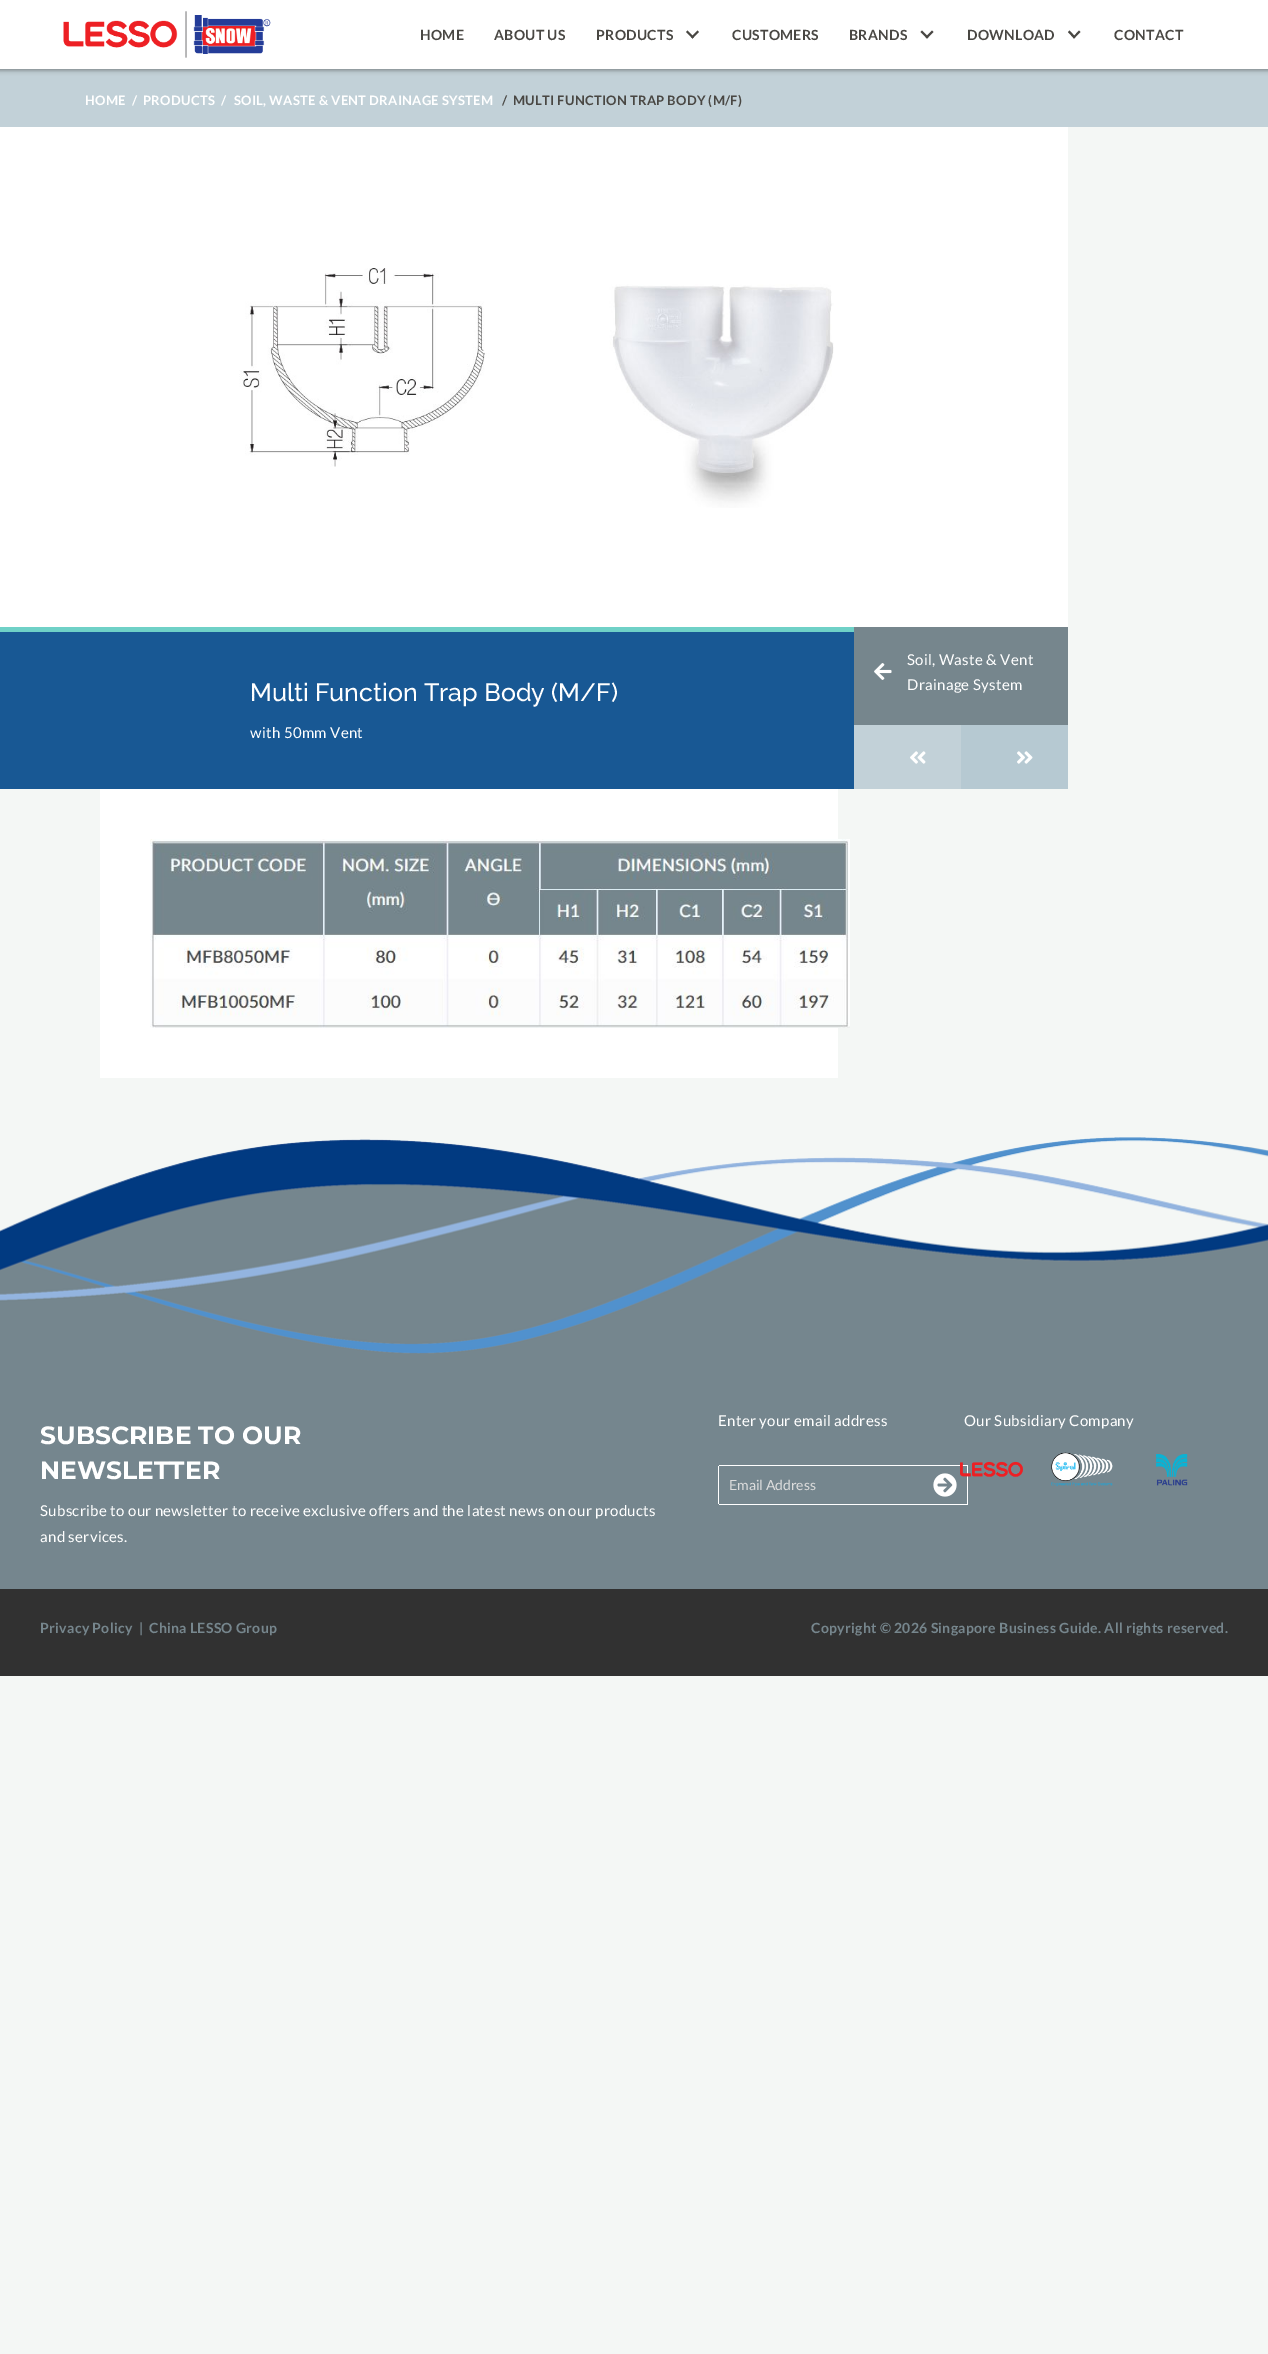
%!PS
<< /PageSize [1268 2354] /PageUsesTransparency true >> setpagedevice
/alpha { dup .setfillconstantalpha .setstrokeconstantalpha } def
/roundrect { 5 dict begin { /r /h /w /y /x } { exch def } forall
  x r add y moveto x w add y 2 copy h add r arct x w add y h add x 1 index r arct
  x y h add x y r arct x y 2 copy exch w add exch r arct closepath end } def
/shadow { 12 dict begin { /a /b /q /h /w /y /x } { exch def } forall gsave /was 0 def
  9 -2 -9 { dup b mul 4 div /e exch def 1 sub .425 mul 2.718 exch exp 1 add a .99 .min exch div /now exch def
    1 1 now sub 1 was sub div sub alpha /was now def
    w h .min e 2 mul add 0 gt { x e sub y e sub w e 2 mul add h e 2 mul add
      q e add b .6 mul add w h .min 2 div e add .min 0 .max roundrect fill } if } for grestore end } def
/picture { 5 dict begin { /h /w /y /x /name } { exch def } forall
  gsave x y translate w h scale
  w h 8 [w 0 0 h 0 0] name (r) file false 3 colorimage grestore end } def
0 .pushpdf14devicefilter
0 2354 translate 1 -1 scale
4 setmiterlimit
0.957 0.969 0.961 setrgbcolor
0 0 1268 2354 rectfill
0.761 0.82 0.847 setrgbcolor
0 69 1268 58 rectfill
0.039 0 0 setrgbcolor
-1 -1 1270 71 0 2.5 0.42 shadow
1 setgray
0 0 1268 69 rectfill
(img1.rgb) 63 11 208 47 picture
/Lato-Bold [14 0 0 -14 0 0] selectfont
0.286 0.278 0.263 setrgbcolor
420 40 moveto 0.3 0 (HOME) ashow
494 40 moveto 0.3 0 (ABOUT US) ashow
596 40 moveto 0.3 0 (PRODUCTS) ashow
newpath 697.5 30.5 moveto 699 32 lineto 692.5 38.5 lineto 691 37 lineto closepath fill
newpath 687.5 30.5 moveto 694 37 lineto 692.5 38.5 lineto 686 32 lineto closepath fill
732 40 moveto 0.3 0 (CUSTOMERS) ashow
849 40 moveto 0.3 0 (BRANDS) ashow
newpath 932 30.5 moveto 933.5 32 lineto 927 38.5 lineto 925.5 37 lineto closepath fill
newpath 922 30.5 moveto 928.5 37 lineto 927 38.5 lineto 920.5 32 lineto closepath fill
967 40 moveto 0.3 0 (DOWNLOAD) ashow
newpath 1079 30.5 moveto 1080.5 32 lineto 1074 38.5 lineto 1073 37 lineto closepath fill
newpath 1069.5 30.5 moveto 1075.5 37 lineto 1074 38.5 lineto 1068 32 lineto closepath fill
1114 40 moveto 0.3 0 (CONTACT) ashow
/Lato-Bold [13 0 0 -13 0 0] selectfont
1 setgray
85 105 moveto 0.3 0 (HOME  /) ashow
143 105 moveto 0.3 0 (PRODUCTS  /) ashow
234 105 moveto 0.3 0 (SOIL, WASTE & VENT DRAINAGE SYSTEM) ashow
0.286 0.278 0.263 setrgbcolor
502 105 moveto 0.3 0 (/  MULTI FUNCTION TRAP BODY \(M/F\)) ashow
1 setgray
0 127 1068 500 rectfill
(img2.rgb) 239 268 595 240 picture
0.463 0.525 0.553 setrgbcolor
854 627 214 98 rectfill
(img3.rgb) 874 663 18 17 picture
/Lato-Regular [15 0 0 -15 0 0] selectfont
1 setgray
907 665 moveto 0.3 0 (Soil, Waste & Vent) ashow
907 690 moveto 0.3 0 (Drainage System) ashow
0.761 0.82 0.847 setrgbcolor
854 725 107 64 rectfill
(img4.rgb) 910 751 16 13 picture
0.714 0.788 0.824 setrgbcolor
961 725 107 64 rectfill
(img5.rgb) 1017 751 16 13 picture
0.094 0.345 0.58 setrgbcolor
0 632 854 157 rectfill
0.435 0.82 0.78 setrgbcolor
0 627 854 5 rectfill
/Raleway-Thin [25 0 0 -25 0 0] selectfont
1 setgray
250 701 moveto (Multi Function Trap Body \(M/F\)) show
/Lato-Regular [15 0 0 -15 0 0] selectfont
250 738 moveto 0.3 0 (with 50mm Vent) ashow
100 789 738 289 rectfill
(img6.rgb) 150 839 700 189 picture
(img7.rgb) 0 1137 1268 226 picture
0.459 0.525 0.557 setrgbcolor
0 1363 1268 226 rectfill
1 setgray
718 1426 moveto 0.3 0 (Enter your email address) ashow
719 1465 249 1 rectfill
719 1504 159 1 rectfill
718 1466 1 38 rectfill
/Lato-Regular [14 0 0 -14 0 0] selectfont
0.867 setgray
729 1490 moveto (Email Address) show
1 setgray
967 1465 1 40 rectfill
878 1504 90 1 rectfill
(img8.rgb) 933 1473 24 24 picture
/Lato-Regular [15 0 0 -15 0 0] selectfont
964 1426 moveto 0.3 0 (Our Subsidiary Company) ashow
(img9.rgb) 960 1461 63 16 picture
(img10.rgb) 1051 1452 62 35 picture
(img11.rgb) 1156 1454 32 32 picture
/Montserrat-Thin [25 0 0 -25 0 0] selectfont
40 1444 moveto (SUBSCRIBE TO OUR) show
40 1479 moveto (NEWSLETTER) show
/Lato-Regular [15 0 0 -15 0 0] selectfont
40 1516 moveto 0.3 0 (Subscribe to our newsletter to receive exclusive offers and the latest news on our products) ashow
40 1542 moveto 0.3 0 (and services.) ashow
0.192 setgray
0 1589 1268 87 rectfill
/Lato-Bold [14 0 0 -14 0 0] selectfont
0.463 0.525 0.553 setrgbcolor
40 1633 moveto 0.3 0 (Privacy Policy) ashow
139 1633 moveto 0.3 0 (|) ashow
149 1633 moveto 0.3 0 (China LESSO Group) ashow
811 1633 moveto 0.3 0 (Copyright © 2026 Singapore Business Guide. All rights reserved.) ashow
.poppdf14devicefilter showpage
